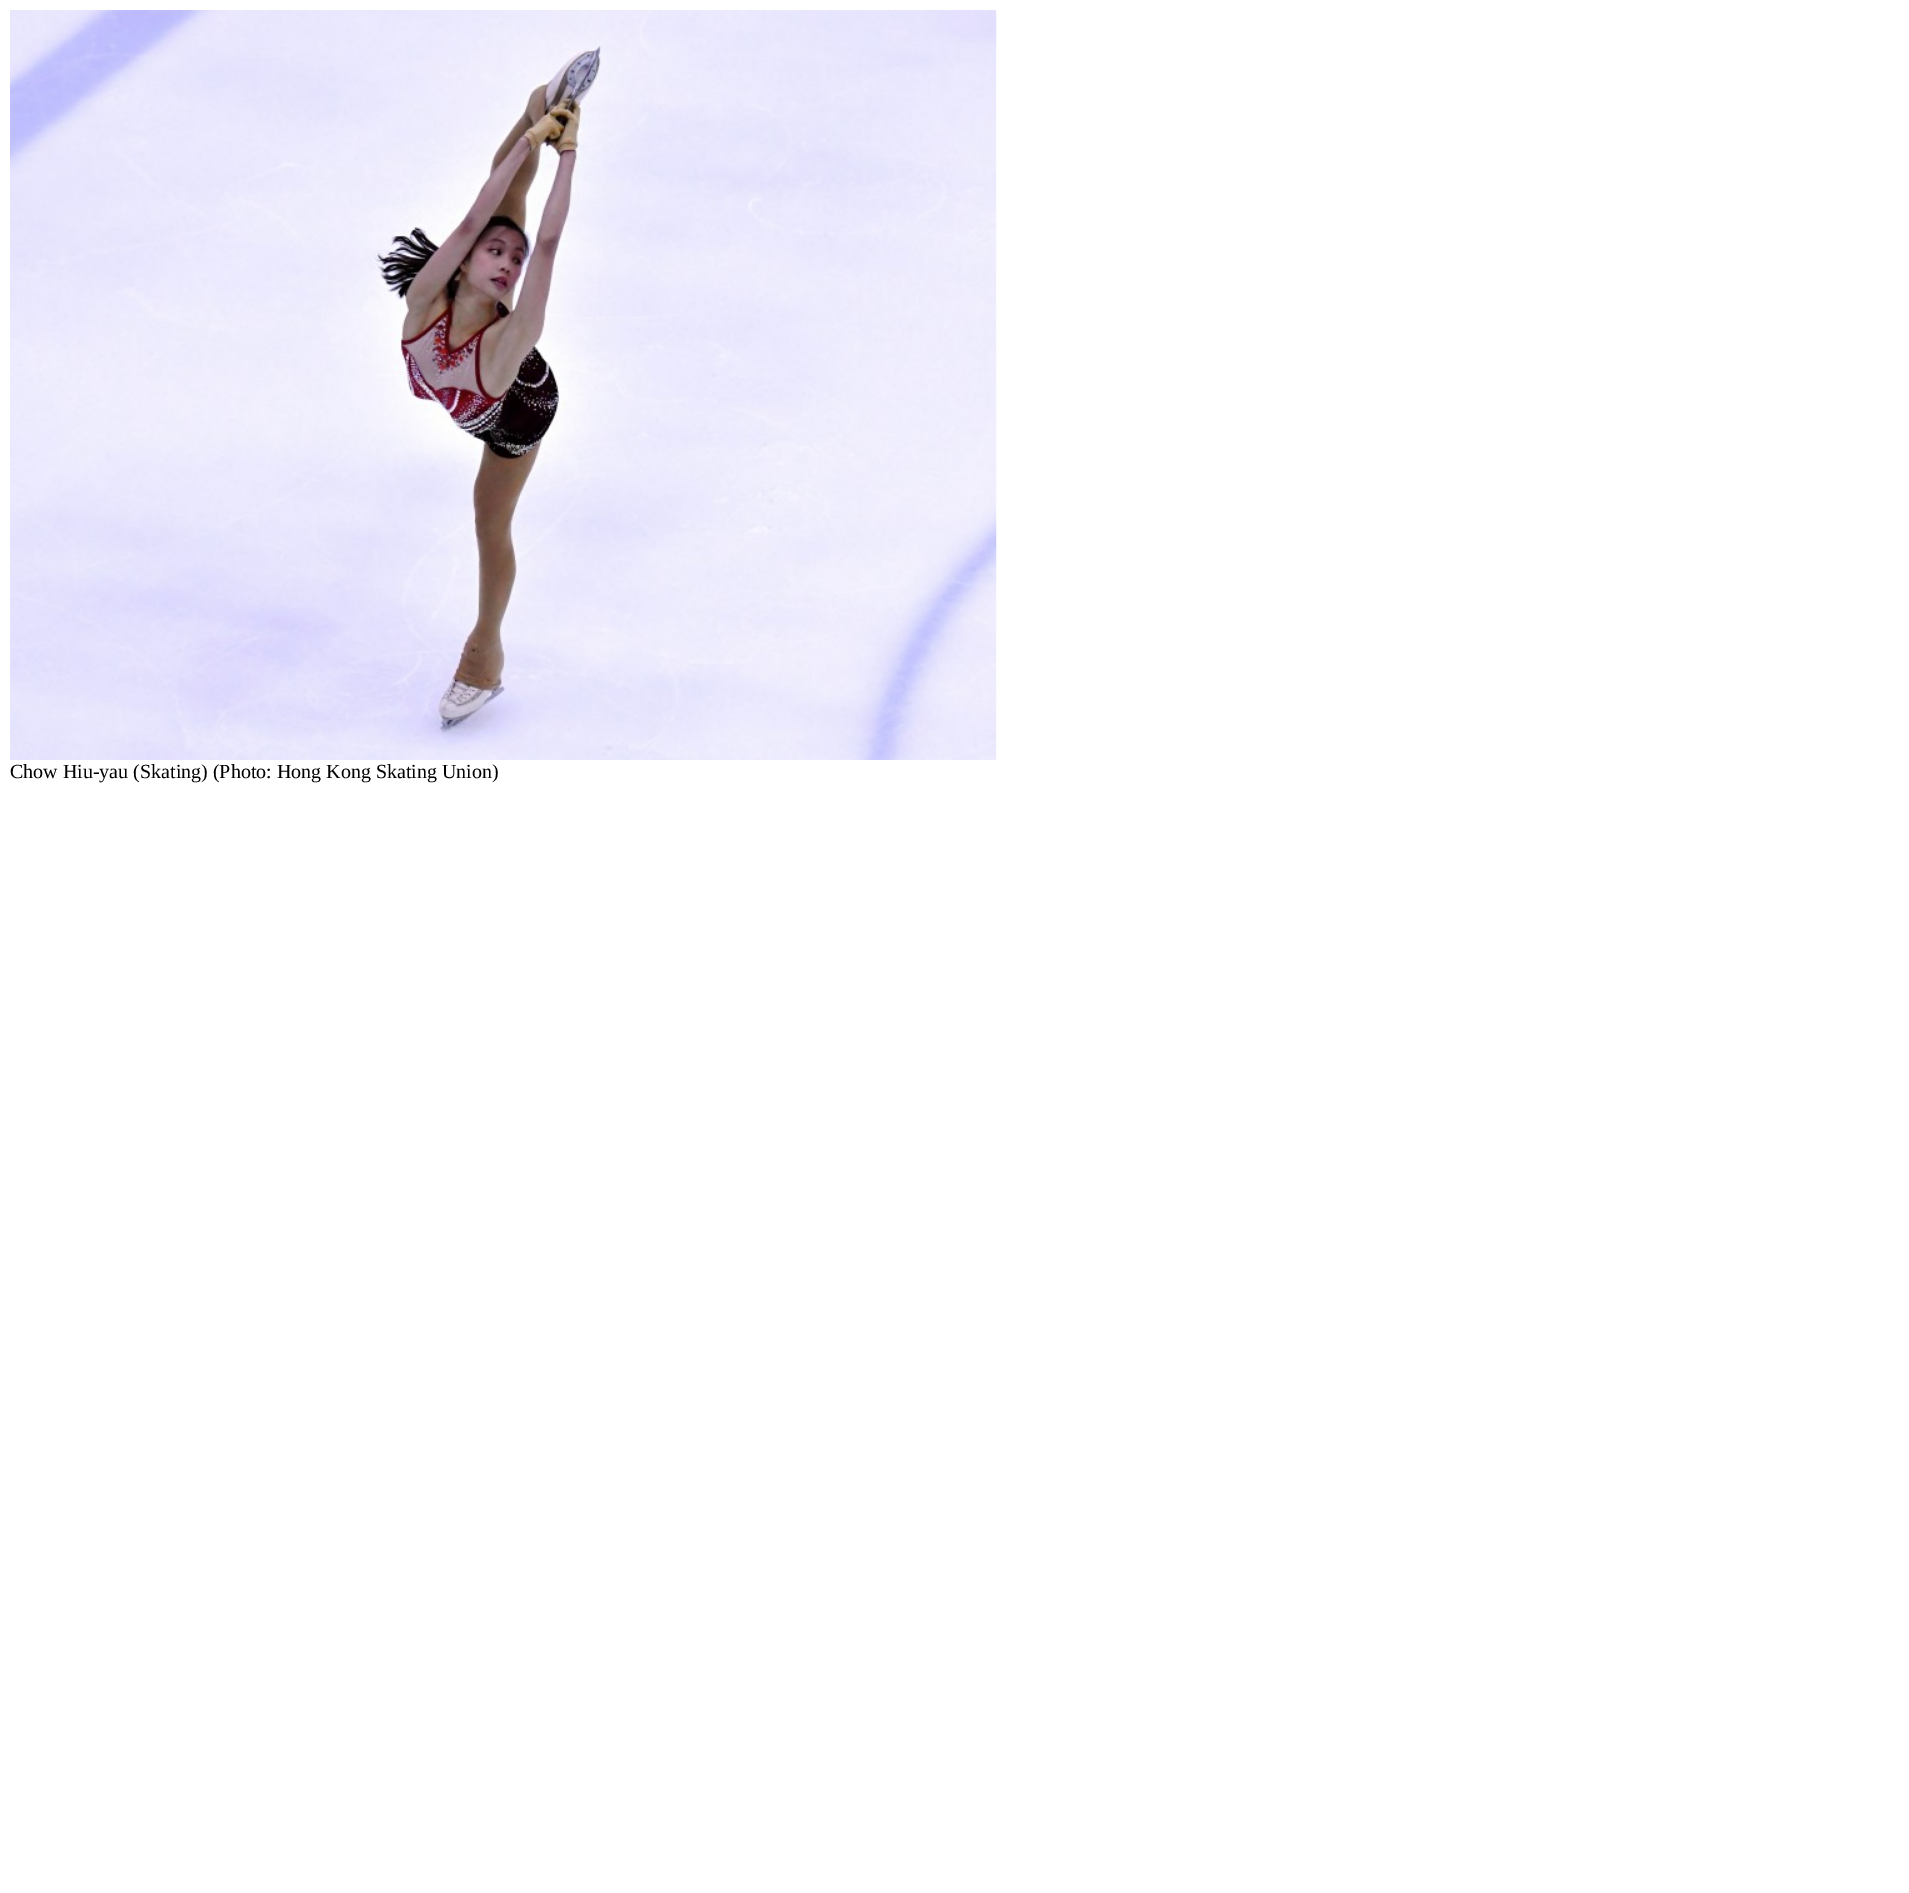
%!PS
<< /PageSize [1909 1893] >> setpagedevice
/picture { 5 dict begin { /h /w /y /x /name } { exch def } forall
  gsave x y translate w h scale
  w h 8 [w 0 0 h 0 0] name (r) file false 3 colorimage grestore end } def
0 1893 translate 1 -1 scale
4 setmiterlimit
1 setgray
0 0 1909 1893 rectfill
(img1.rgb) 10 10 987 750 picture
/LiberationSerif-Regular [20 0 0 -20 0 0] selectfont
0 setgray
10 778 moveto (Chow Hiu-yau \(Skating\) \(Photo: Hong Kong Skating Union\)) show
showpage
